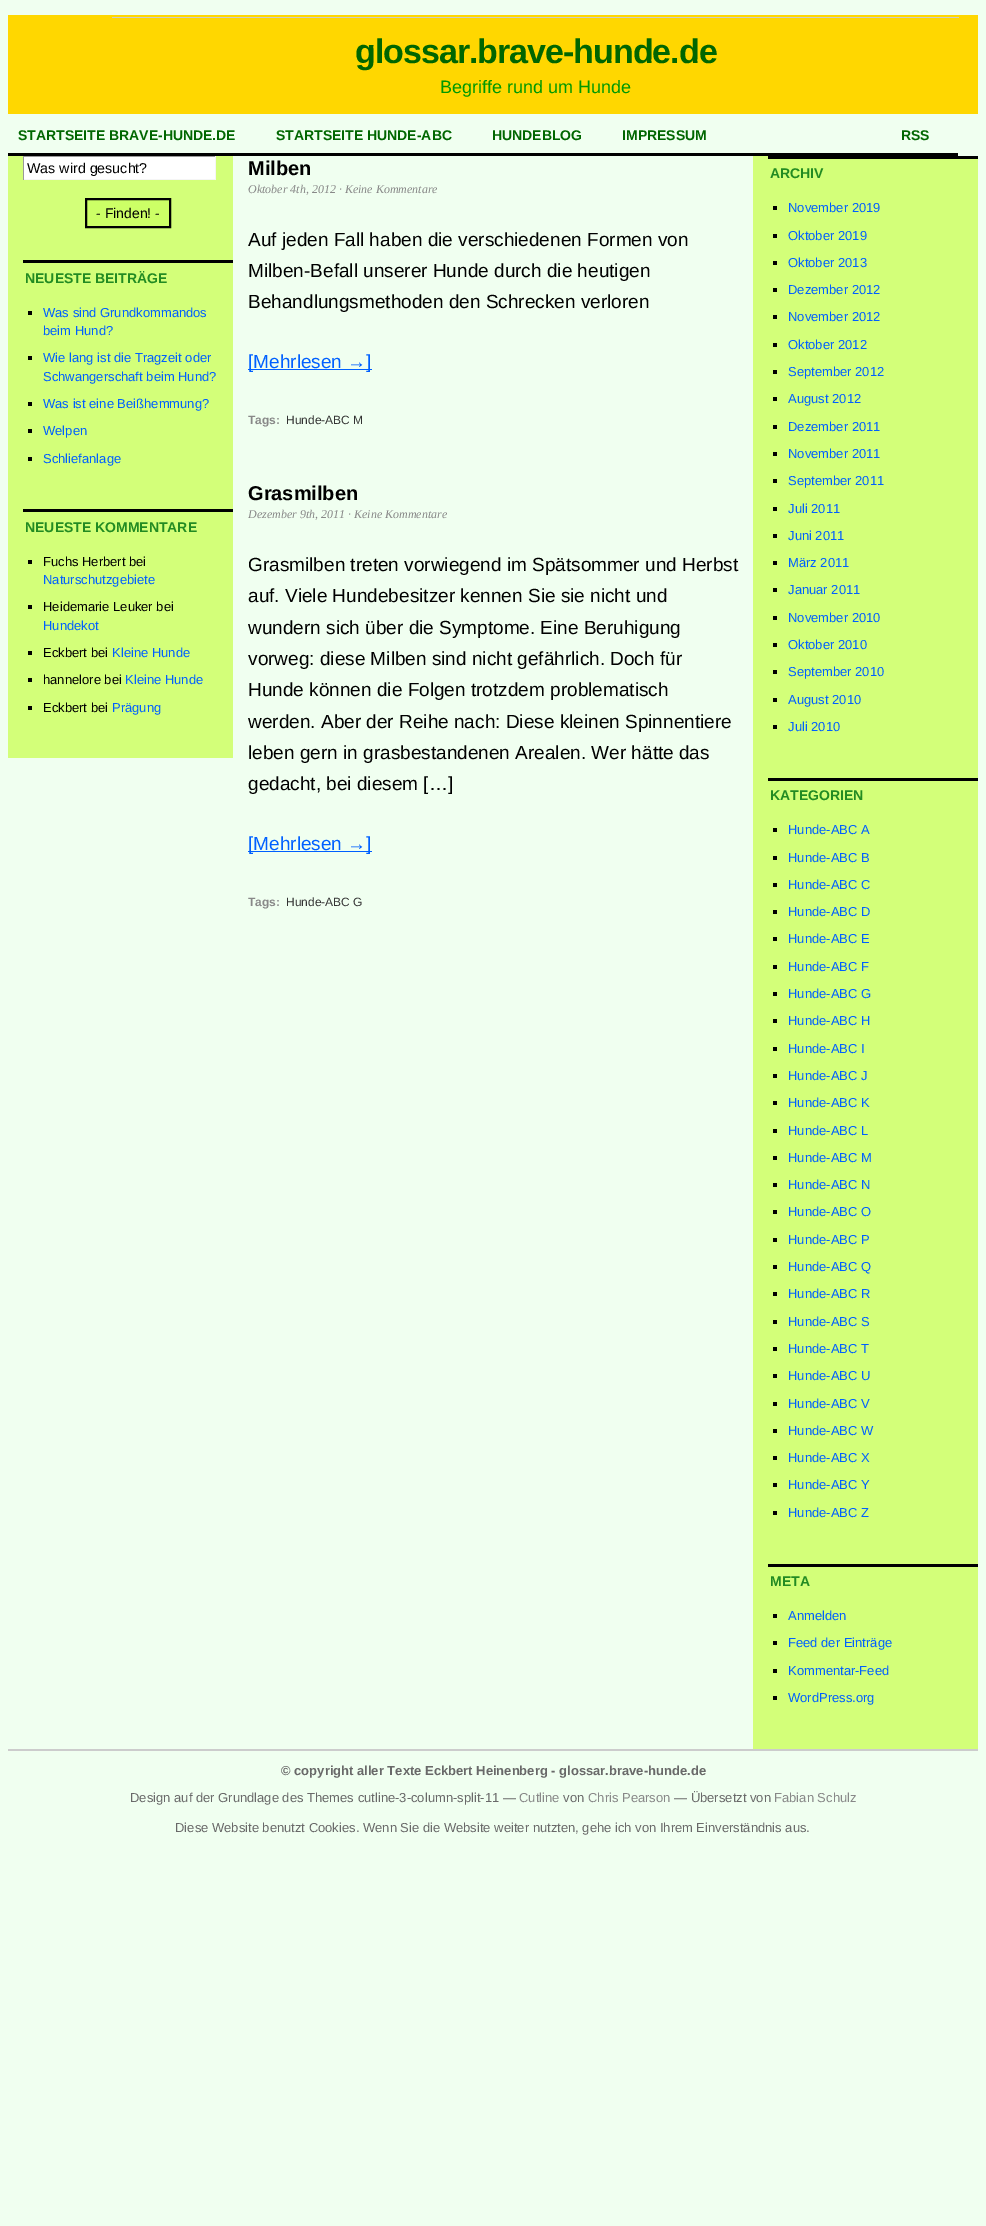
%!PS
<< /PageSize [986 2226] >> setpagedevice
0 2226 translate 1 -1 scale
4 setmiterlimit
0.941 1 0.941 setrgbcolor
0 0 986 2226 rectfill
1 0.843 0 setrgbcolor
8 15 970 99 rectfill
0.8 setgray
112 17 847 1 rectfill
/LiberationSans-Bold [34 0 0 -34 0 0] selectfont
0 0.4 0 setrgbcolor
355 63 moveto -1 0 (glossar.brave-hunde.de) ashow
/LiberationSans-Regular [18 0 0 -18 0 0] selectfont
0 0.6 0 setrgbcolor
440 93 moveto (Begriffe rund um Hunde) show
0 setgray
8 153 950 3 rectfill
/LiberationSans-Bold [14 0 0 -14 0 0] selectfont
0 0.4 0 setrgbcolor
18 140 moveto (STARTSEITE BRAVE-HUNDE.DE) show
276 140 moveto (STARTSEITE HUNDE-ABC) show
492 140 moveto (HUNDEBLOG) show
622 140 moveto (IMPRESSUM) show
901 140 moveto (RSS) show
0.827 1 0.475 setrgbcolor
8 156 225 602 rectfill
1 setgray
24 157 191 22 rectfill
0.6 setgray
23 156 193 1 rectfill
0.961 setgray
215 156 1 24 rectfill
23 179 193 1 rectfill
0.6 setgray
23 156 1 24 rectfill
/LiberationSans-Regular [14.25 0 0 -14.25 0 0] selectfont
0 setgray
27 173 moveto (Was wird gesucht?) show
0.8 1 0.4 setrgbcolor
newpath 86 199 moveto 170 199 lineto 170 227 lineto 86 227 lineto closepath gsave fill grestore
0 setgray
2 setlinewidth
stroke
/LiberationSans-Regular [14 0 0 -14 0 0] selectfont
96 218 moveto (- Finden! -) show
23 260 210 3 rectfill
/LiberationSans-Bold [14 0 0 -14 0 0] selectfont
0.133 0.545 0.133 setrgbcolor
25 283 moveto (NEUESTE BEITRÄGE) show
0 setgray
28 311 4 4 rectfill
/LiberationSans-Regular [13 0 0 -13 0 0] selectfont
0 0.376 1 setrgbcolor
43 317 moveto (Was sind Grundkommandos) show
43 335 moveto (beim Hund?) show
0 setgray
28 356 4 4 rectfill
0 0.376 1 setrgbcolor
43 362 moveto (Wie lang ist die Tragzeit oder) show
43 381 moveto (Schwangerschaft beim Hund?) show
0 setgray
28 402 4 4 rectfill
0 0.376 1 setrgbcolor
43 408 moveto (Was ist eine Beißhemmung?) show
0 setgray
28 429 4 4 rectfill
0 0.376 1 setrgbcolor
43 435 moveto (Welpen) show
0 setgray
28 457 4 4 rectfill
0 0.376 1 setrgbcolor
43 463 moveto (Schliefanlage) show
0 setgray
23 509 210 3 rectfill
/LiberationSans-Bold [14 0 0 -14 0 0] selectfont
0.133 0.545 0.133 setrgbcolor
25 532 moveto (NEUESTE KOMMENTARE) show
0 setgray
28 560 4 4 rectfill
/LiberationSans-Regular [13 0 0 -13 0 0] selectfont
43 566 moveto (Fuchs Herbert bei) show
0 0.376 1 setrgbcolor
43 584 moveto (Naturschutzgebiete) show
0 setgray
28 605 4 4 rectfill
43 611 moveto (Heidemarie Leuker bei) show
0 0.376 1 setrgbcolor
43 630 moveto (Hundekot) show
0 setgray
28 651 4 4 rectfill
43 657 moveto (Eckbert bei) show
0 0.376 1 setrgbcolor
112 657 moveto (Kleine Hunde) show
0 setgray
28 678 4 4 rectfill
43 684 moveto (hannelore bei) show
0 0.376 1 setrgbcolor
125 684 moveto (Kleine Hunde) show
0 setgray
28 706 4 4 rectfill
43 712 moveto (Eckbert bei) show
0 0.376 1 setrgbcolor
112 712 moveto (Prägung) show
/LiberationSans-Bold [20 0 0 -20 0 0] selectfont
0 setgray
248 175 moveto (Milben) show
/LiberationSerif-Italic [12 0 0 -12 0 0] selectfont
0.533 setgray
248 193 moveto (Oktober 4th, 2012 · Keine Kommentare) show
/LiberationSans-Regular [19 0 0 -19 0 0] selectfont
0 setgray
248 246 moveto (Auf jeden Fall haben die verschiedenen Formen von) show
248 277 moveto (Milben-Befall unserer Hunde durch die heutigen) show
248 308 moveto (Behandlungsmethoden den Schrecken verloren) show
0 0.376 1 setrgbcolor
248 369 124 1 rectfill
248 368 moveto ([Mehrlesen →]) show
/LiberationSans-Bold [12 0 0 -12 0 0] selectfont
0.533 setgray
248 424 moveto (Tags:) show
/LiberationSans-Regular [12 0 0 -12 0 0] selectfont
0.2 setgray
286 424 moveto (Hunde-ABC M) show
/LiberationSans-Bold [20 0 0 -20 0 0] selectfont
0 setgray
248 500 moveto (Grasmilben) show
/LiberationSerif-Italic [12 0 0 -12 0 0] selectfont
0.533 setgray
248 518 moveto (Dezember 9th, 2011 · Keine Kommentare) show
/LiberationSans-Regular [19 0 0 -19 0 0] selectfont
0 setgray
248 571 moveto (Grasmilben treten vorwiegend im Spätsommer und Herbst) show
248 602 moveto (auf. Viele Hundebesitzer kennen Sie sie nicht und) show
248 634 moveto (wundern sich über die Symptome. Eine Beruhigung) show
248 665 moveto (vorweg: diese Milben sind nicht gefährlich. Doch für) show
248 696 moveto (Hunde können die Folgen trotzdem problematisch) show
248 728 moveto (werden. Aber der Reihe nach: Diese kleinen Spinnentiere) show
248 759 moveto (leben gern in grasbestandenen Arealen. Wer hätte das) show
248 790 moveto (gedacht, bei diesem […]) show
0 0.376 1 setrgbcolor
248 851 124 1 rectfill
248 850 moveto ([Mehrlesen →]) show
/LiberationSans-Bold [12 0 0 -12 0 0] selectfont
0.533 setgray
248 906 moveto (Tags:) show
/LiberationSans-Regular [12 0 0 -12 0 0] selectfont
0.2 setgray
286 906 moveto (Hunde-ABC G) show
0.827 1 0.475 setrgbcolor
753 156 225 1593 rectfill
0 setgray
768 156 210 3 rectfill
/LiberationSans-Bold [14 0 0 -14 0 0] selectfont
0.133 0.545 0.133 setrgbcolor
770 178 moveto (ARCHIV) show
0 setgray
773 206 4 4 rectfill
/LiberationSans-Regular [13 0 0 -13 0 0] selectfont
0 0.376 1 setrgbcolor
788 212 moveto (November 2019) show
0 setgray
773 234 4 4 rectfill
0 0.376 1 setrgbcolor
788 240 moveto (Oktober 2019) show
0 setgray
773 261 4 4 rectfill
0 0.376 1 setrgbcolor
788 267 moveto (Oktober 2013) show
0 setgray
773 288 4 4 rectfill
0 0.376 1 setrgbcolor
788 294 moveto (Dezember 2012) show
0 setgray
773 315 4 4 rectfill
0 0.376 1 setrgbcolor
788 321 moveto (November 2012) show
0 setgray
773 343 4 4 rectfill
0 0.376 1 setrgbcolor
788 349 moveto (Oktober 2012) show
0 setgray
773 370 4 4 rectfill
0 0.376 1 setrgbcolor
788 376 moveto (September 2012) show
0 setgray
773 397 4 4 rectfill
0 0.376 1 setrgbcolor
788 403 moveto (August 2012) show
0 setgray
773 425 4 4 rectfill
0 0.376 1 setrgbcolor
788 431 moveto (Dezember 2011) show
0 setgray
773 452 4 4 rectfill
0 0.376 1 setrgbcolor
788 458 moveto (November 2011) show
0 setgray
773 479 4 4 rectfill
0 0.376 1 setrgbcolor
788 485 moveto (September 2011) show
0 setgray
773 507 4 4 rectfill
0 0.376 1 setrgbcolor
788 513 moveto (Juli 2011) show
0 setgray
773 534 4 4 rectfill
0 0.376 1 setrgbcolor
788 540 moveto (Juni 2011) show
0 setgray
773 561 4 4 rectfill
0 0.376 1 setrgbcolor
788 567 moveto (März 2011) show
0 setgray
773 588 4 4 rectfill
0 0.376 1 setrgbcolor
788 594 moveto (Januar 2011) show
0 setgray
773 616 4 4 rectfill
0 0.376 1 setrgbcolor
788 622 moveto (November 2010) show
0 setgray
773 643 4 4 rectfill
0 0.376 1 setrgbcolor
788 649 moveto (Oktober 2010) show
0 setgray
773 670 4 4 rectfill
0 0.376 1 setrgbcolor
788 676 moveto (September 2010) show
0 setgray
773 698 4 4 rectfill
0 0.376 1 setrgbcolor
788 704 moveto (August 2010) show
0 setgray
773 725 4 4 rectfill
0 0.376 1 setrgbcolor
788 731 moveto (Juli 2010) show
0 setgray
768 778 210 3 rectfill
/LiberationSans-Bold [14 0 0 -14 0 0] selectfont
0.133 0.545 0.133 setrgbcolor
770 800 moveto (KATEGORIEN) show
0 setgray
773 828 4 4 rectfill
/LiberationSans-Regular [13 0 0 -13 0 0] selectfont
0 0.376 1 setrgbcolor
788 834 moveto (Hunde-ABC A) show
0 setgray
773 856 4 4 rectfill
0 0.376 1 setrgbcolor
788 862 moveto (Hunde-ABC B) show
0 setgray
773 883 4 4 rectfill
0 0.376 1 setrgbcolor
788 889 moveto (Hunde-ABC C) show
0 setgray
773 910 4 4 rectfill
0 0.376 1 setrgbcolor
788 916 moveto (Hunde-ABC D) show
0 setgray
773 937 4 4 rectfill
0 0.376 1 setrgbcolor
788 943 moveto (Hunde-ABC E) show
0 setgray
773 965 4 4 rectfill
0 0.376 1 setrgbcolor
788 971 moveto (Hunde-ABC F) show
0 setgray
773 992 4 4 rectfill
0 0.376 1 setrgbcolor
788 998 moveto (Hunde-ABC G) show
0 setgray
773 1019 4 4 rectfill
0 0.376 1 setrgbcolor
788 1025 moveto (Hunde-ABC H) show
0 setgray
773 1047 4 4 rectfill
0 0.376 1 setrgbcolor
788 1053 moveto (Hunde-ABC I) show
0 setgray
773 1074 4 4 rectfill
0 0.376 1 setrgbcolor
788 1080 moveto (Hunde-ABC J) show
0 setgray
773 1101 4 4 rectfill
0 0.376 1 setrgbcolor
788 1107 moveto (Hunde-ABC K) show
0 setgray
773 1129 4 4 rectfill
0 0.376 1 setrgbcolor
788 1135 moveto (Hunde-ABC L) show
0 setgray
773 1156 4 4 rectfill
0 0.376 1 setrgbcolor
788 1162 moveto (Hunde-ABC M) show
0 setgray
773 1183 4 4 rectfill
0 0.376 1 setrgbcolor
788 1189 moveto (Hunde-ABC N) show
0 setgray
773 1210 4 4 rectfill
0 0.376 1 setrgbcolor
788 1216 moveto (Hunde-ABC O) show
0 setgray
773 1238 4 4 rectfill
0 0.376 1 setrgbcolor
788 1244 moveto (Hunde-ABC P) show
0 setgray
773 1265 4 4 rectfill
0 0.376 1 setrgbcolor
788 1271 moveto (Hunde-ABC Q) show
0 setgray
773 1292 4 4 rectfill
0 0.376 1 setrgbcolor
788 1298 moveto (Hunde-ABC R) show
0 setgray
773 1320 4 4 rectfill
0 0.376 1 setrgbcolor
788 1326 moveto (Hunde-ABC S) show
0 setgray
773 1347 4 4 rectfill
0 0.376 1 setrgbcolor
788 1353 moveto (Hunde-ABC T) show
0 setgray
773 1374 4 4 rectfill
0 0.376 1 setrgbcolor
788 1380 moveto (Hunde-ABC U) show
0 setgray
773 1402 4 4 rectfill
0 0.376 1 setrgbcolor
788 1408 moveto (Hunde-ABC V) show
0 setgray
773 1429 4 4 rectfill
0 0.376 1 setrgbcolor
788 1435 moveto (Hunde-ABC W) show
0 setgray
773 1456 4 4 rectfill
0 0.376 1 setrgbcolor
788 1462 moveto (Hunde-ABC X) show
0 setgray
773 1483 4 4 rectfill
0 0.376 1 setrgbcolor
788 1489 moveto (Hunde-ABC Y) show
0 setgray
773 1511 4 4 rectfill
0 0.376 1 setrgbcolor
788 1517 moveto (Hunde-ABC Z) show
0 setgray
768 1564 210 3 rectfill
/LiberationSans-Bold [14 0 0 -14 0 0] selectfont
0.133 0.545 0.133 setrgbcolor
770 1586 moveto (META) show
0 setgray
773 1614 4 4 rectfill
/LiberationSans-Regular [13 0 0 -13 0 0] selectfont
0 0.376 1 setrgbcolor
788 1620 moveto (Anmelden) show
0 setgray
773 1641 4 4 rectfill
0 0.376 1 setrgbcolor
788 1647 moveto (Feed der Einträge) show
0 setgray
773 1669 4 4 rectfill
0 0.376 1 setrgbcolor
788 1675 moveto (Kommentar-Feed) show
0 setgray
773 1696 4 4 rectfill
0 0.376 1 setrgbcolor
788 1702 moveto (WordPress.org) show
0.8 setgray
8 1749 970 2 rectfill
/LiberationSans-Bold [13 0 0 -13 0 0] selectfont
0.412 setgray
281 1775 moveto (© copyright aller Texte Eckbert Heinenberg - glossar.brave-hunde.de) show
/LiberationSans-Regular [13 0 0 -13 0 0] selectfont
130 1802 moveto (Design auf der Grundlage des Themes cutline-3-column-split-11 —) show
0.533 setgray
519 1802 moveto (Cutline) show
0.412 setgray
563 1802 moveto (von) show
0.533 setgray
588 1802 moveto (Chris Pearson) show
0.412 setgray
674 1802 moveto (— Übersetzt von) show
0.533 setgray
774 1802 moveto (Fabian Schulz) show
0.412 setgray
175 1832 moveto (Diese Website benutzt Cookies. Wenn Sie die Website weiter nutzten, gehe ich von Ihrem Einverständnis aus.) show
showpage
